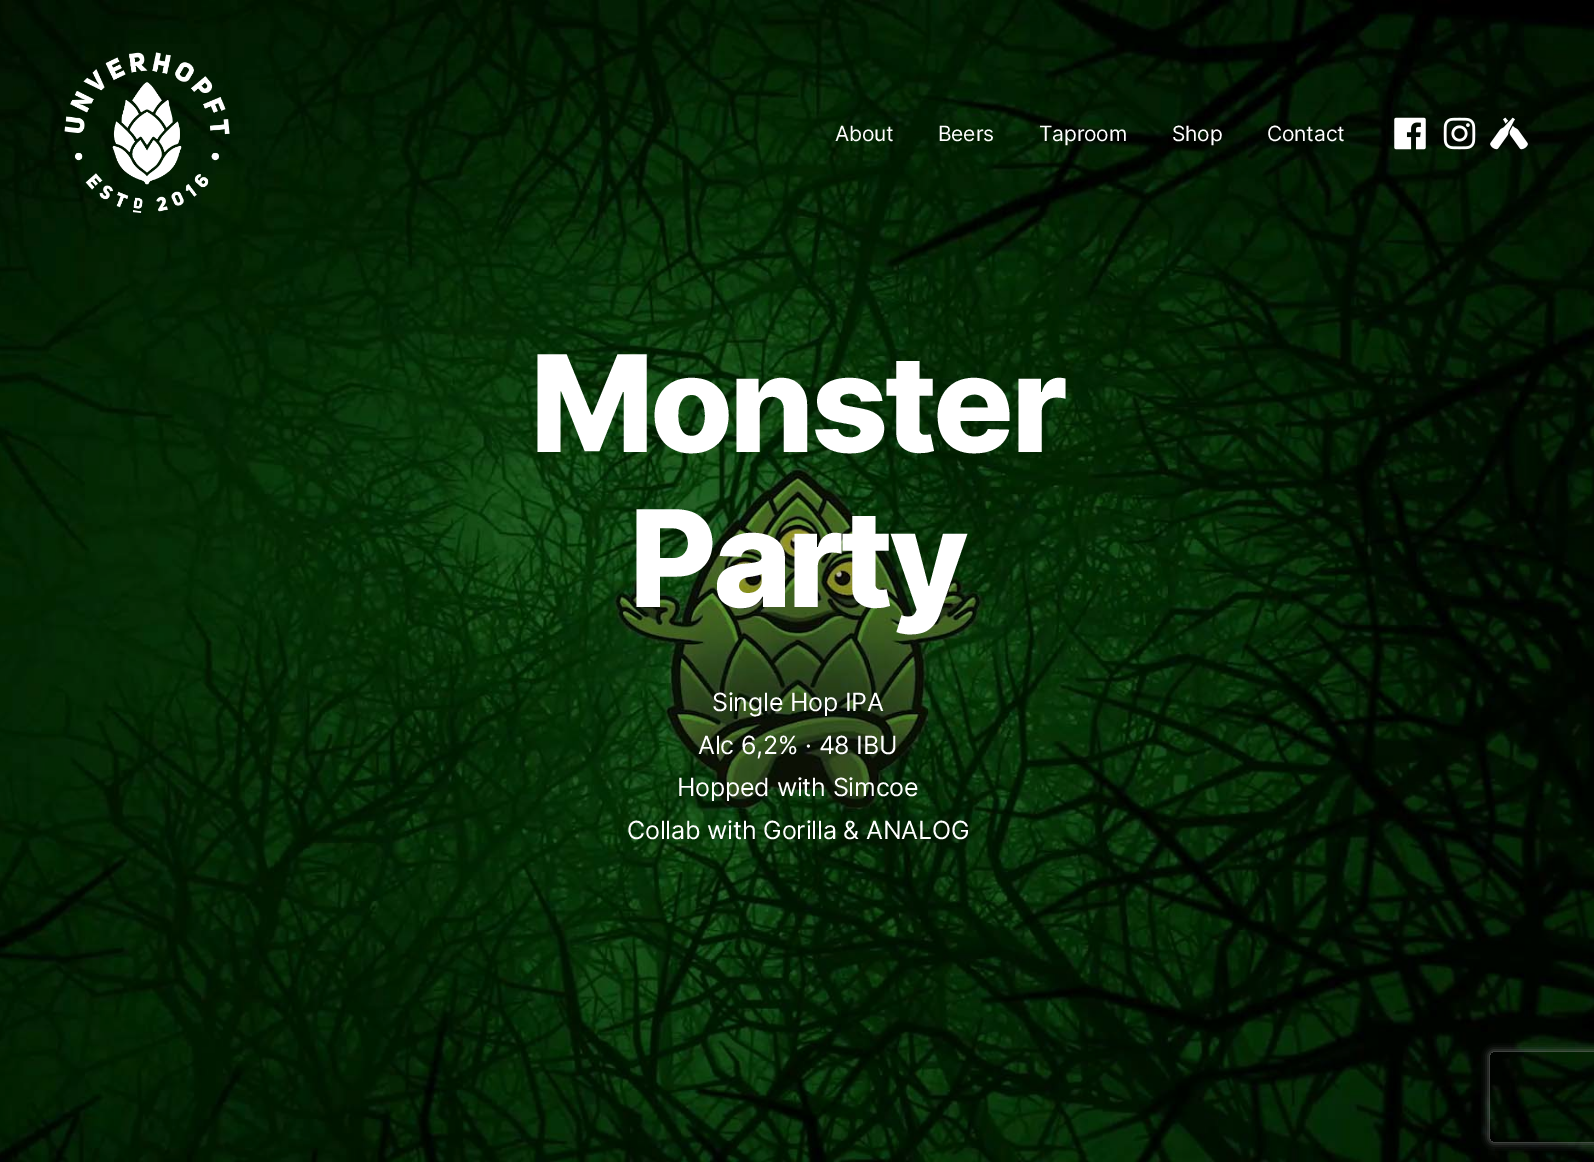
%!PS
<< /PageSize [1594 1162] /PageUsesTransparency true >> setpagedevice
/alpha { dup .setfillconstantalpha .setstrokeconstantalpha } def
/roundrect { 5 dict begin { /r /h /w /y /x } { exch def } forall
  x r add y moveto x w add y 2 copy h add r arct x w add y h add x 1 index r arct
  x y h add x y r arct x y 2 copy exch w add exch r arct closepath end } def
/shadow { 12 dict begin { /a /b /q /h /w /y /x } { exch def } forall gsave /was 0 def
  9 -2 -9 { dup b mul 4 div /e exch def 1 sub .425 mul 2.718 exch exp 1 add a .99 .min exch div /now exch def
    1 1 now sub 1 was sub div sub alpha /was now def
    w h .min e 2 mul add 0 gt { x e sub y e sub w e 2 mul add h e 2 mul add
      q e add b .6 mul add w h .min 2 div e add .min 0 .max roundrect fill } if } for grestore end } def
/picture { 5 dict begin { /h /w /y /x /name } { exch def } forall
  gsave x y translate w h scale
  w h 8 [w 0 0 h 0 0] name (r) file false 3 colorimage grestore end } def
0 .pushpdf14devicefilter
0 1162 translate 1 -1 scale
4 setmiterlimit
1 setgray
0 0 1594 1162 rectfill
(img5.rgb) 0 0 1594 1162 picture
(img1.rgb) 64 52 166 161 picture
/Inter-Regular [21 0 0 -21 0 0] selectfont
835 141 moveto -0.2 0 (About) ashow
938 141 moveto -0.2 0 (Beers) ashow
1039 141 moveto -0.2 0 (Taproom) ashow
1172 141 moveto -0.2 0 (Shop) ashow
1267 141 moveto -0.2 0 (Contact) ashow
(img2.rgb) 1394 117 32 33 picture
(img3.rgb) 1443 117 33 33 picture
(img4.rgb) 1490 117 38 33 picture
/Inter-ExtraBold [134.5 0 0 -134.5 0 0] selectfont
530 452 moveto -4 0 (Monster) ashow
629 607 moveto -4 0 (Party) ashow
/Inter-Regular [25 0 0 -25 0 0] selectfont
712 711 moveto -0.2 0 (Single Hop IPA) ashow
698 754 moveto -0.2 0 (Alc 6,2% · 48 IBU) ashow
677 796 moveto -0.2 0 (Hopped with Simcoe) ashow
627 839 moveto -0.2 0 (Collab with Gorilla & ANALOG) ashow
gsave
newpath 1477 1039 moveto 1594 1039 lineto 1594 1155 lineto 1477 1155 lineto closepath 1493 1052 moveto 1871 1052 lineto 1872.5 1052 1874 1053.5 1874 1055 curveto 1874 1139 lineto 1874 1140.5 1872.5 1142 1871 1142 curveto 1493 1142 lineto 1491.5 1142 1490 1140.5 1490 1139 curveto 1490 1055 lineto 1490 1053.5 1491.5 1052 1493 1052 curveto closepath eoclip newpath
0.502 setgray
1490 1052 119 90 3 4 1 shadow
grestore
.poppdf14devicefilter showpage
